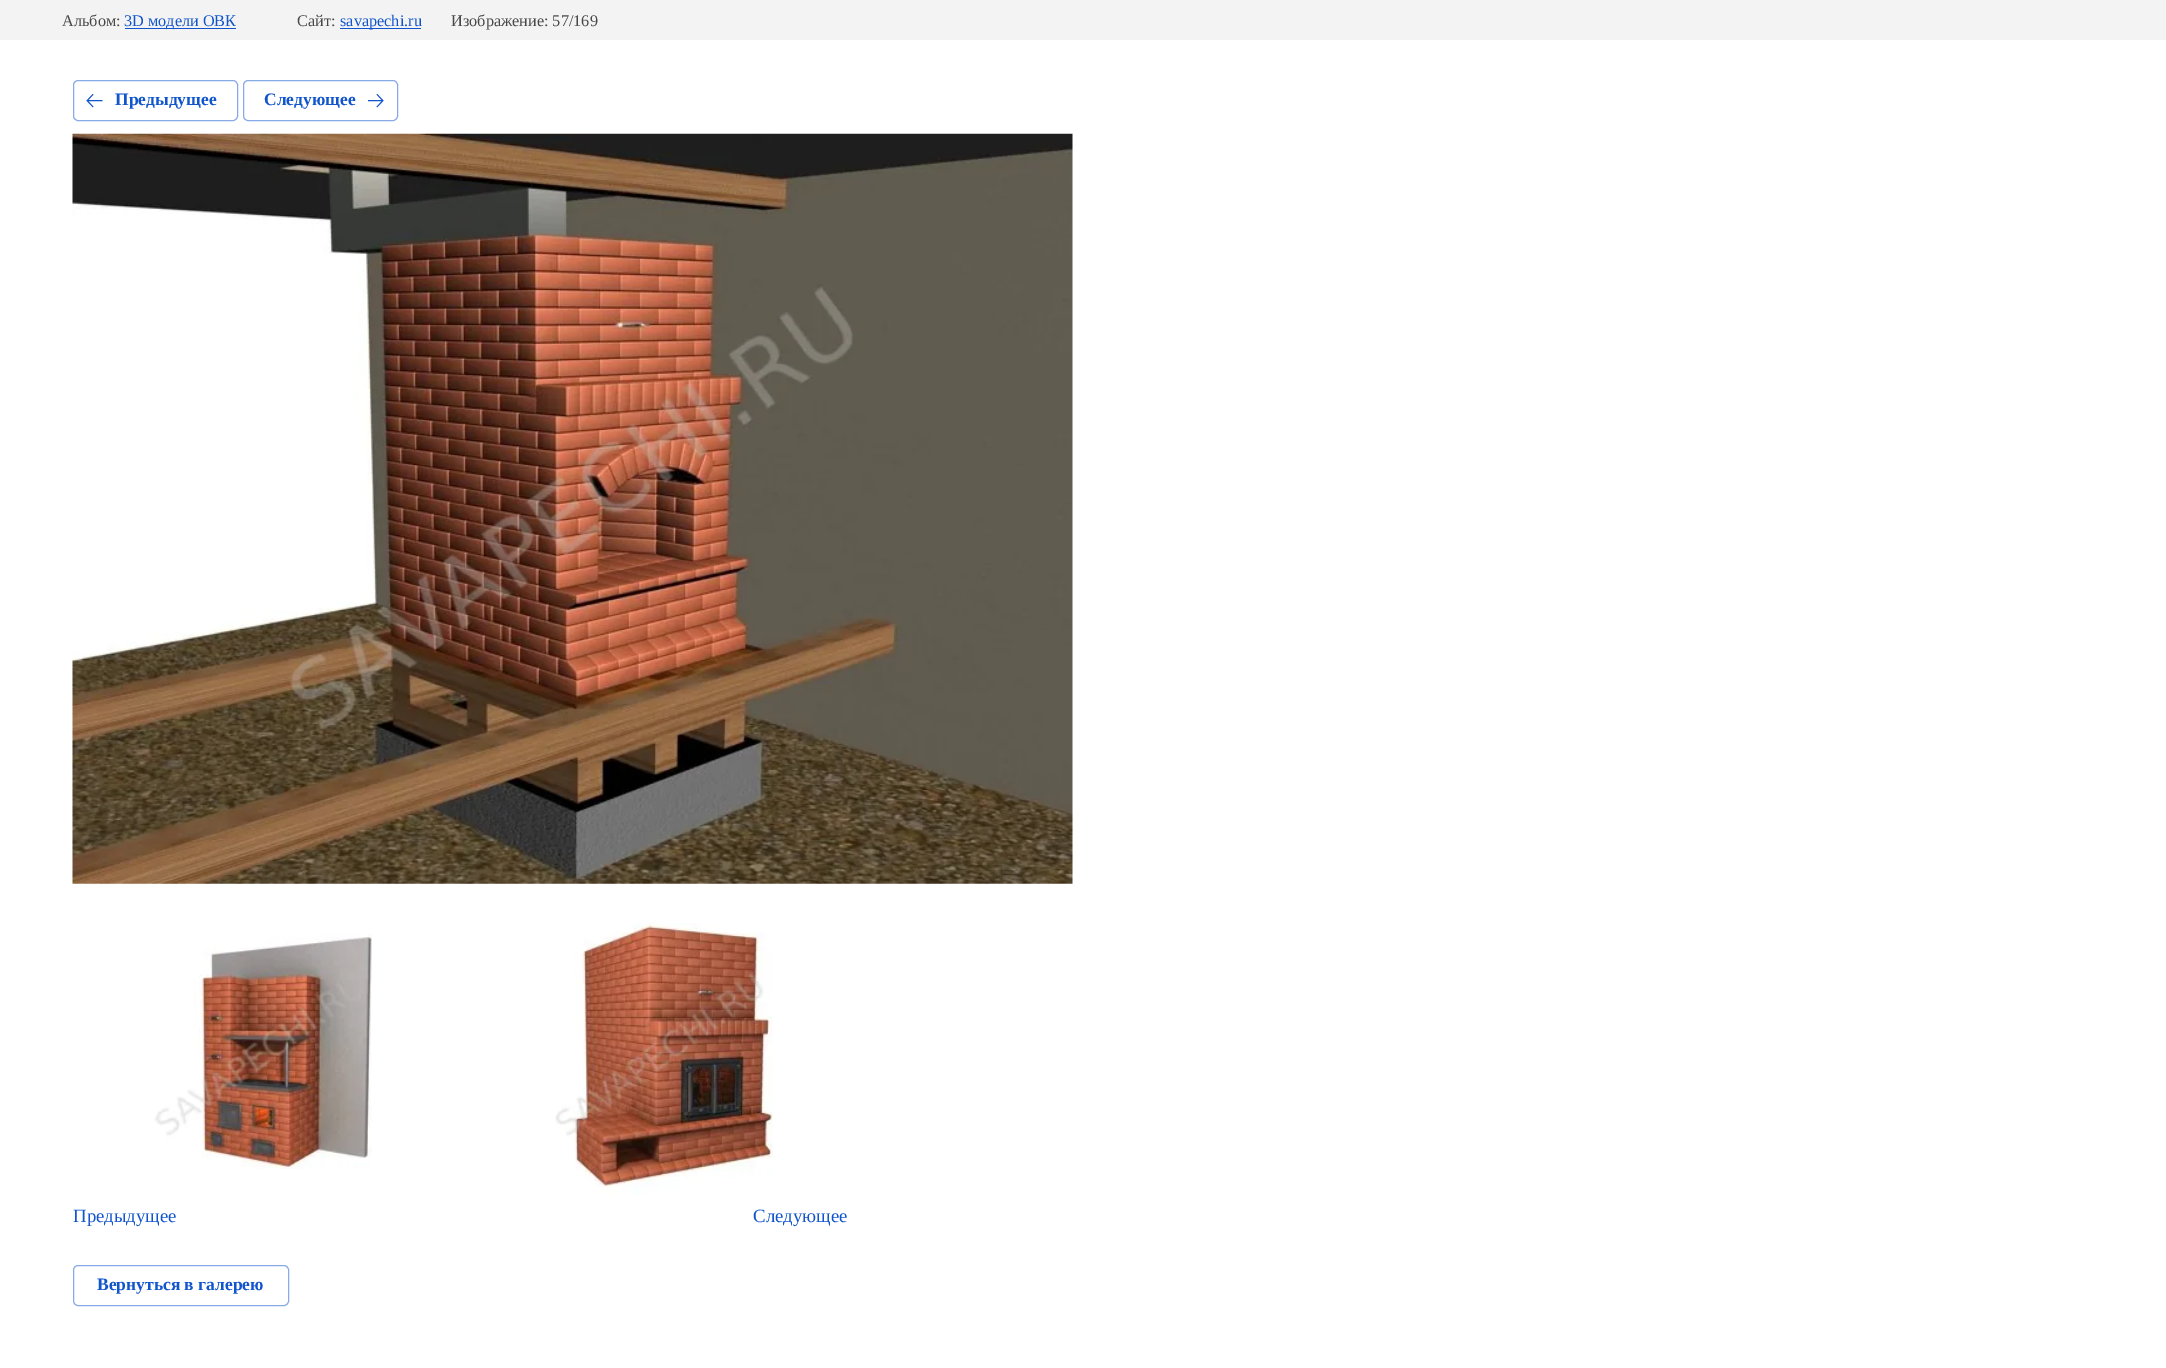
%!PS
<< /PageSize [2166 1368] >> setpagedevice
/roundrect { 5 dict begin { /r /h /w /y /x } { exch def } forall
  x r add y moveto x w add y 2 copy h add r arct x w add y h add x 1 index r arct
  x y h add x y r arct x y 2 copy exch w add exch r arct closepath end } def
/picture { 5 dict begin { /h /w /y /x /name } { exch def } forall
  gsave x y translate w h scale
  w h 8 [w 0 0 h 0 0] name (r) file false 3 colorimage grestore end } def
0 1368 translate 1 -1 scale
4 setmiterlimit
1 setgray
0 0 2166 1368 rectfill
0.953 setgray
0 0 2166 40 rectfill
/LiberationSerif-Regular [16.25 0 0 -16.25 0 0] selectfont
0.282 setgray
62 26 moveto (Альбом:) show
0.067 0.333 0.8 setrgbcolor
125 28 111 1 rectfill
124 26 moveto (3D модели ОВК) show
0.282 setgray
297 26 moveto (Сайт:) show
0.067 0.333 0.8 setrgbcolor
340 28 81 1 rectfill
340 26 moveto (savapechi.ru) show
0.282 setgray
451 26 moveto (Изображение: 57/169) show
0.533 0.667 0.902 setrgbcolor
73.5 80.5 164 40 4.5 roundrect stroke
(img1.rgb) 86 94 17 14 picture
/LiberationSerif-Bold [17.5 0 0 -17.5 0 0] selectfont
0.067 0.333 0.8 setrgbcolor
115 105 moveto (Предыдущее) show
0.533 0.667 0.902 setrgbcolor
243.5 80.5 154 40 4.5 roundrect stroke
0.067 0.333 0.8 setrgbcolor
264 105 moveto (Следующее) show
(img2.rgb) 368 94 16 14 picture
(img3.rgb) 72 133 1001 751 picture
(img4.rgb) 154 934 218 235 picture
/LiberationSerif-Regular [18.75 0 0 -18.75 0 0] selectfont
73 1222 moveto (Предыдущее) show
(img5.rgb) 555 923 218 272 picture
753 1222 moveto (Следующее) show
0.533 0.667 0.902 setrgbcolor
73.5 1265.5 215 40 4.5 roundrect stroke
/LiberationSerif-Bold [17.5 0 0 -17.5 0 0] selectfont
0.067 0.333 0.8 setrgbcolor
97 1290 moveto (Вернуться в галерею) show
showpage
